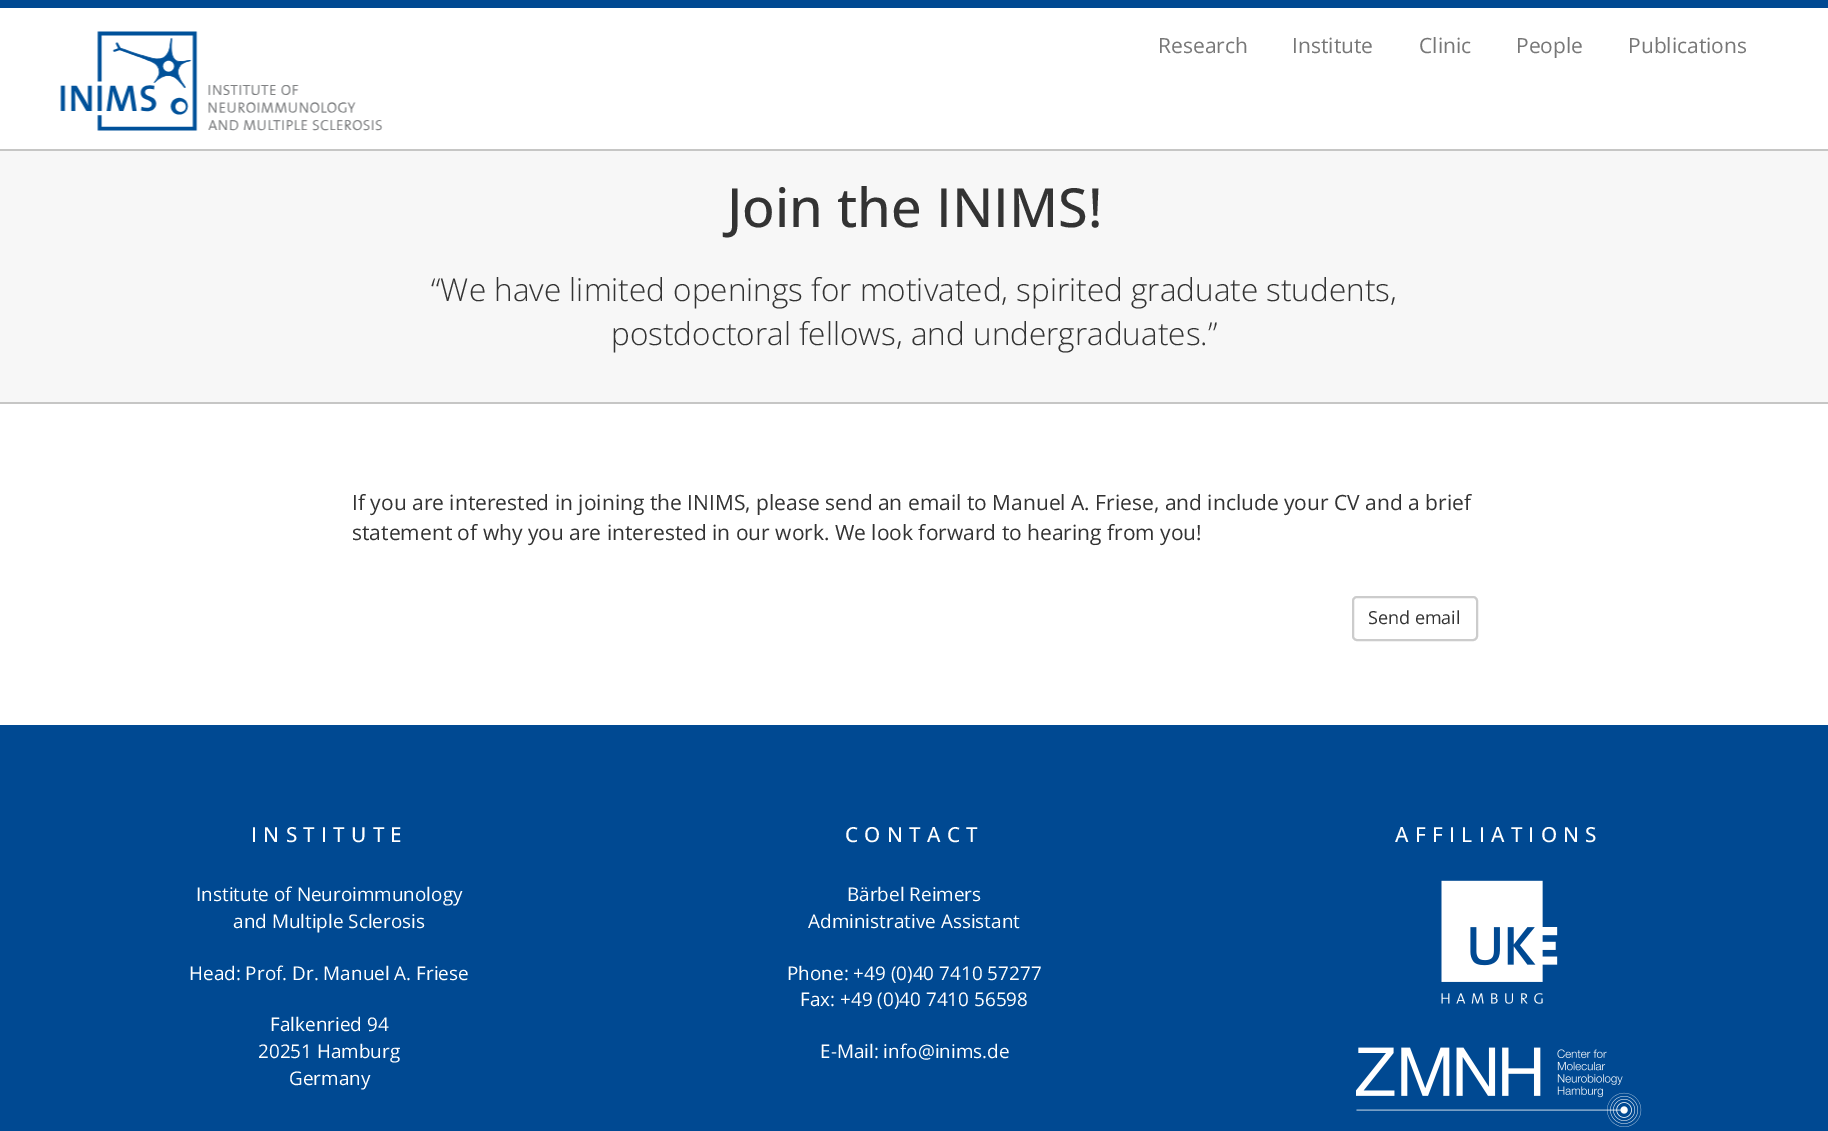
%!PS
<< /PageSize [1828 1131] >> setpagedevice
/roundrect { 5 dict begin { /r /h /w /y /x } { exch def } forall
  x r add y moveto x w add y 2 copy h add r arct x w add y h add x 1 index r arct
  x y h add x y r arct x y 2 copy exch w add exch r arct closepath end } def
/picture { 5 dict begin { /h /w /y /x /name } { exch def } forall
  gsave x y translate w h scale
  w h 8 [w 0 0 h 0 0] name (r) file false 3 colorimage grestore end } def
0 1131 translate 1 -1 scale
4 setmiterlimit
1 setgray
0 0 1828 1131 rectfill
0.776 0.776 0.773 setrgbcolor
0 149 1828 2 rectfill
0 0.286 0.573 setrgbcolor
0 0 1828 8 rectfill
(img1.rgb) 60 31 323 100 picture
/OpenSans-Regular [21 0 0 -21 0 0] selectfont
0.467 setgray
1158 53 moveto (Research) show
1292 53 moveto (Institute) show
1419 53 moveto (Clinic) show
1516 53 moveto (People) show
1628 53 moveto (Publications) show
0.969 setgray
0 151 1828 251 rectfill
0.776 0.776 0.773 setrgbcolor
0 402 1828 2 rectfill
/OpenSans-Medium [54 0 0 -54 0 0] selectfont
0.2 setgray
727 227 moveto (Join the INIMS!) show
/OpenSans-Light [31.5 0 0 -31.5 0 0] selectfont
431 301 moveto (“We have limited openings for motivated, spirited graduate students,) show
611 345 moveto (postdoctoral fellows, and undergraduates.”) show
/OpenSans-Regular [21 0 0 -21 0 0] selectfont
352 510 moveto (If you are interested in joining the INIMS, please send an email to Manuel A. Friese, and include your CV and a brief) show
352 540 moveto (statement of why you are interested in our work. We look forward to hearing from you!) show
0.8 setgray
2 setlinewidth
1353 597 124 43 4 roundrect stroke
/OpenSans-Regular [18 0 0 -18 0 0] selectfont
0.2 setgray
1368 624 moveto (Send email) show
0 0.286 0.573 setrgbcolor
0 725 1828 406 rectfill
/OpenSans-Medium [20.75 0 0 -20.75 0 0] selectfont
1 setgray
251 842 moveto 6.25 0 (INSTITUTE) ashow
/OpenSans-Regular [18.9 0 0 -18.9 0 0] selectfont
196 901 moveto (Institute of Neuroimmunology) show
233 928 moveto (and Multiple Sclerosis) show
189 980 moveto (Head: Prof. Dr. Manuel A. Friese) show
270 1031 moveto (Falkenried 94) show
258 1058 moveto (20251 Hamburg) show
289 1085 moveto (Germany) show
/OpenSans-Medium [20.75 0 0 -20.75 0 0] selectfont
845 842 moveto 6.25 0 (CONTACT) ashow
/OpenSans-Regular [18.9 0 0 -18.9 0 0] selectfont
847 901 moveto (Bärbel Reimers) show
808 928 moveto (Administrative Assistant) show
787 980 moveto (Phone: +49 \(0\)40 7410 57277) show
800 1006 moveto (Fax: +49 \(0\)40 7410 56598) show
820 1058 moveto (E-Mail: info@inims.de) show
/OpenSans-Medium [20.75 0 0 -20.75 0 0] selectfont
1395 842 moveto 6.25 0 (AFFILIATIONS) ashow
(img2.rgb) 1441 880 117 124 picture
(img3.rgb) 1356 1047 286 80 picture
showpage
